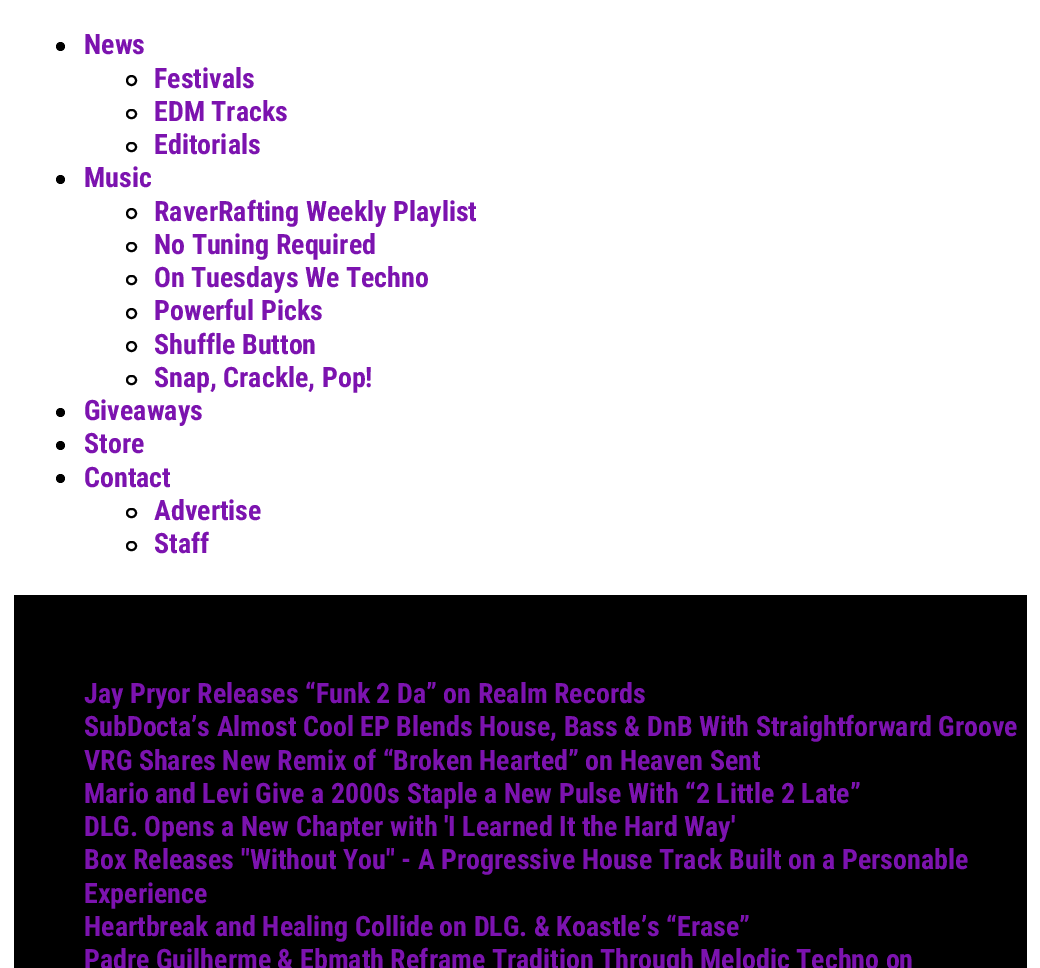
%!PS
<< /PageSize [1040 968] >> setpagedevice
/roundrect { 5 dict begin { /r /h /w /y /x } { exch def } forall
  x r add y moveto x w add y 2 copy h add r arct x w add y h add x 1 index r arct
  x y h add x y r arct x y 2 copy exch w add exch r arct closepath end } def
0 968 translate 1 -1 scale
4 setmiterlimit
1 setgray
0 0 1040 968 rectfill
0 setgray
newpath 60.5 46.5 4.5 0 360 arc closepath fill
/RobotoCondensed-Bold [28 0 0 -28 0 0] selectfont
0.486 0.075 0.686 setrgbcolor
84 54 moveto (News) show
0 setgray
2 setlinewidth
newpath 131.5 80.5 4.5 0 360 arc closepath stroke
0.486 0.075 0.686 setrgbcolor
154 88 moveto (Festivals) show
0 setgray
127 110 9 8 4 roundrect stroke
0.486 0.075 0.686 setrgbcolor
154 121 moveto (EDM Tracks) show
0 setgray
127 143 9 8 4 roundrect stroke
0.486 0.075 0.686 setrgbcolor
154 154 moveto (Editorials) show
0 setgray
newpath 60.5 179.5 4.5 0 360 arc closepath fill
0.486 0.075 0.686 setrgbcolor
84 187 moveto (Music) show
0 setgray
newpath 131.5 213.5 4.5 0 360 arc closepath stroke
0.486 0.075 0.686 setrgbcolor
154 221 moveto (RaverRafting Weekly Playlist) show
0 setgray
127 243 9 8 4 roundrect stroke
0.486 0.075 0.686 setrgbcolor
154 254 moveto (No Tuning Required) show
0 setgray
127 276 9 8 4 roundrect stroke
0.486 0.075 0.686 setrgbcolor
154 287 moveto (On Tuesdays We Techno) show
0 setgray
newpath 131.5 313.5 4.5 0 360 arc closepath stroke
0.486 0.075 0.686 setrgbcolor
154 320 moveto (Powerful Picks) show
0 setgray
newpath 131.5 346.5 4.5 0 360 arc closepath stroke
0.486 0.075 0.686 setrgbcolor
154 354 moveto (Shuffle Button) show
0 setgray
127 376 9 8 4 roundrect stroke
0.486 0.075 0.686 setrgbcolor
154 387 moveto (Snap, Crackle, Pop!) show
0 setgray
newpath 60.5 412.5 4.5 0 360 arc closepath fill
0.486 0.075 0.686 setrgbcolor
84 420 moveto (Giveaways) show
0 setgray
newpath 60.5 445.5 4.5 0 360 arc closepath fill
0.486 0.075 0.686 setrgbcolor
84 453 moveto (Store) show
0 setgray
newpath 60.5 478.5 4.5 0 360 arc closepath fill
0.486 0.075 0.686 setrgbcolor
84 487 moveto (Contact) show
0 setgray
127 509 9 8 4 roundrect stroke
0.486 0.075 0.686 setrgbcolor
154 520 moveto (Advertise) show
0 setgray
127 542 9 8 4 roundrect stroke
0.486 0.075 0.686 setrgbcolor
154 553 moveto (Staff) show
0 setgray
14 595 1013 373 rectfill
0.486 0.075 0.686 setrgbcolor
84 703 moveto (Jay Pryor Releases “Funk 2 Da” on Realm Records) show
84 736 moveto (SubDocta’s Almost Cool EP Blends House, Bass & DnB With Straightforward Groove) show
84 770 moveto (VRG Shares New Remix of “Broken Hearted” on Heaven Sent) show
84 803 moveto (Mario and Levi Give a 2000s Staple a New Pulse With “2 Little 2 Late”) show
84 836 moveto (DLG. Opens a New Chapter with 'I Learned It the Hard Way') show
84 869 moveto (Box Releases "Without You" - A Progressive House Track Built on a Personable) show
84 903 moveto (Experience) show
84 936 moveto (Heartbreak and Healing Collide on DLG. & Koastle’s “Erase”) show
84 969 moveto (Padre Guilherme & Ebmath Reframe Tradition Through Melodic Techno on) show
showpage
